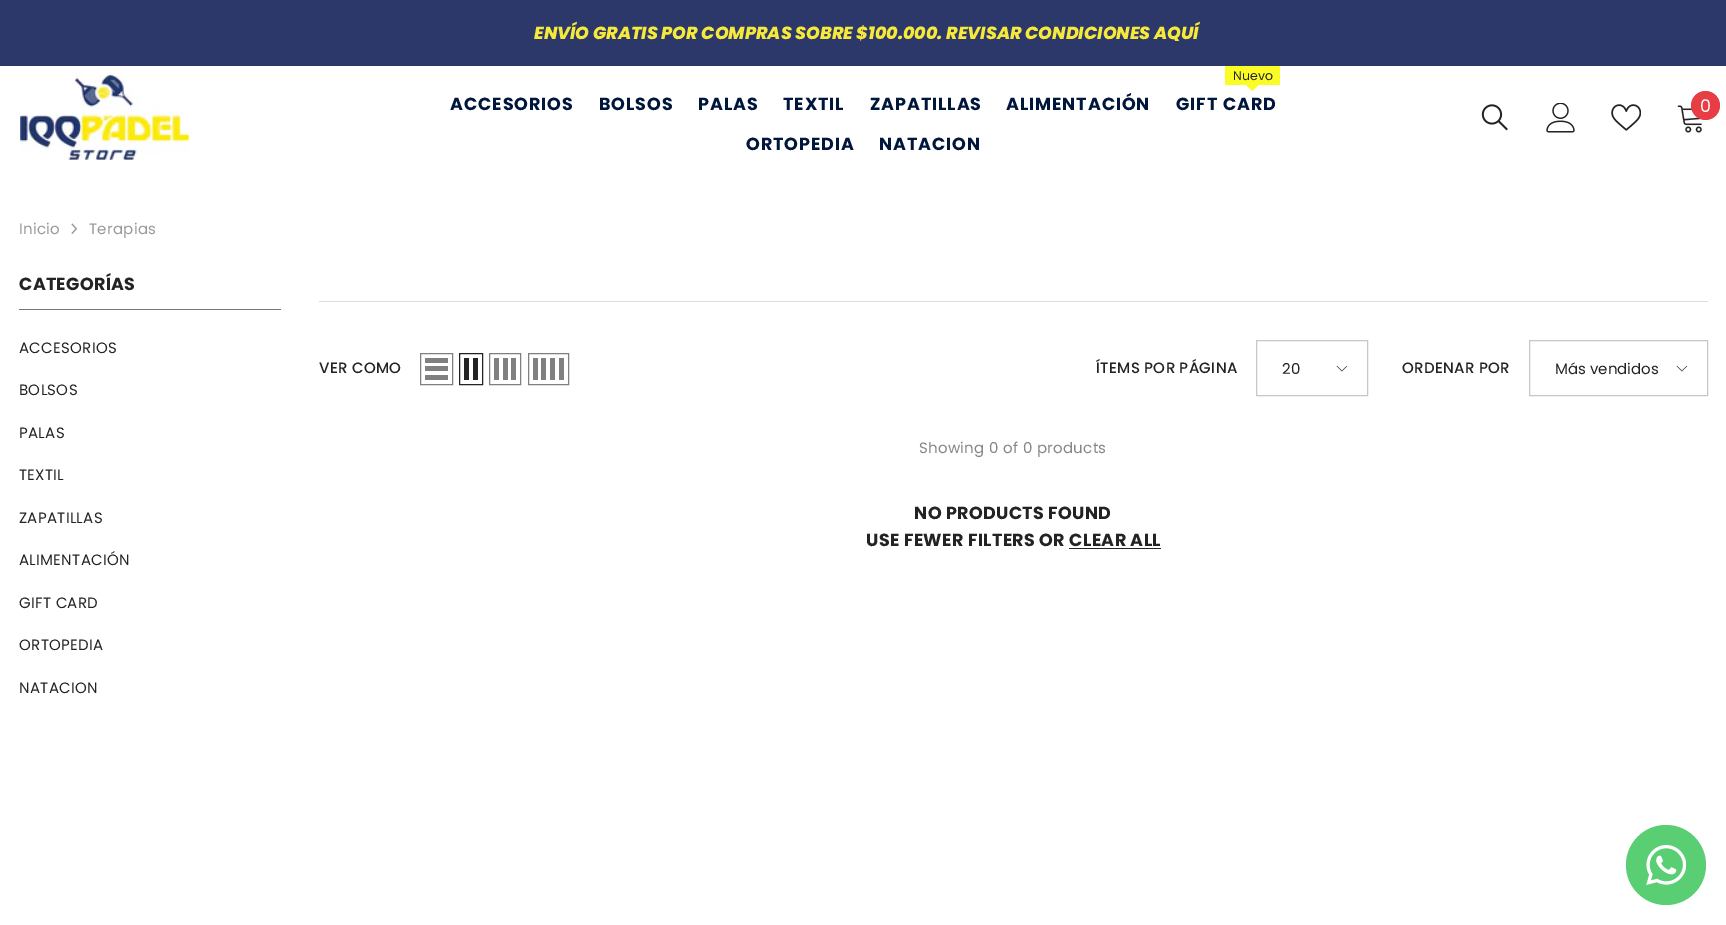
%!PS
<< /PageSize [1726 925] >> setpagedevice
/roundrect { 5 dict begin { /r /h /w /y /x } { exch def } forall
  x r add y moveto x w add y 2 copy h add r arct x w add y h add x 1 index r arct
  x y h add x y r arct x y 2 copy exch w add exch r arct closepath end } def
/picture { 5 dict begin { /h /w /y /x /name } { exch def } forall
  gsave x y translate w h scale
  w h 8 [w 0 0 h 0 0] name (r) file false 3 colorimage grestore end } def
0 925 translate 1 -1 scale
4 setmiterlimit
1 setgray
0 0 1726 925 rectfill
0.173 0.22 0.416 setrgbcolor
0 0 1726 66 rectfill
/Poppins-ExtraBoldItalic [17.5 0 0 -17.5 0 0] selectfont
0.965 0.914 0.227 setrgbcolor
534 39 moveto (ENVÍO GRATIS POR COMPRAS SOBRE $100.000. REVISAR CONDICIONES AQUÍ) show
(img1.rgb) 20 74 169 86 picture
/Poppins-Bold [17.5 0 0 -17.5 0 0] selectfont
0 0.086 0.227 setrgbcolor
450 110 moveto 0.9 0 (ACCESORIOS) ashow
599 110 moveto 0.9 0 (BOLSOS) ashow
698 110 moveto 0.9 0 (PALAS) ashow
783 110 moveto 0.9 0 (TEXTIL) ashow
870 110 moveto 0.9 0 (ZAPATILLAS) ashow
1006 110 moveto 0.9 0 (ALIMENTACIÓN) ashow
0.984 0.988 0.149 setrgbcolor
1225 66 55 19 1 roundrect fill
/Poppins-Regular [12.5 0 0 -12.5 0 0] selectfont
0.137 setgray
1233 80 moveto (Nuevo) show
0.984 0.988 0.149 setrgbcolor
newpath 1246 85 moveto 1258.5 85 lineto 1252.5 91 lineto closepath fill
/Poppins-Bold [17.5 0 0 -17.5 0 0] selectfont
0 0.086 0.227 setrgbcolor
1176 110 moveto 0.9 0 (GIFT CARD) ashow
746 150 moveto 0.9 0 (ORTOPEDIA) ashow
879 150 moveto 0.9 0 (NATACION) ashow
(img2.rgb) 1481 104 27 27 picture
(img3.rgb) 1546 103 29 30 picture
(img4.rgb) 1611 104 30 27 picture
(img5.rgb) 1677 105 25 28 picture
0.906 0.243 0.271 setrgbcolor
newpath 1705.5 105.5 14.5 0 360 arc closepath fill
/Poppins-Regular [17.5 0 0 -17.5 0 0] selectfont
1 setgray
1700 112 moveto (0) show
/Poppins-Regular [15 0 0 -15 0 0] selectfont
0.6 setgray
19 234 moveto 0.3 0 (Inicio) ashow
(img6.rgb) 71 223 7 11 picture
89 234 moveto 0.3 0 (Terapias) ashow
0.471 setgray
19 309 262 1 rectfill
/Poppins-Bold [17.5 0 0 -17.5 0 0] selectfont
0.137 setgray
19 290 moveto 0.3 0 (CATEGORÍAS) ashow
/Poppins-Regular [15 0 0 -15 0 0] selectfont
19 353 moveto 0.3 0 (ACCESORIOS) ashow
19 395 moveto 0.3 0 (BOLSOS) ashow
19 438 moveto 0.3 0 (PALAS) ashow
19 480 moveto 0.3 0 (TEXTIL) ashow
19 523 moveto 0.3 0 (ZAPATILLAS) ashow
19 565 moveto 0.3 0 (ALIMENTACIÓN) ashow
19 608 moveto 0.3 0 (GIFT CARD) ashow
19 650 moveto 0.3 0 (ORTOPEDIA) ashow
19 693 moveto 0.3 0 (NATACION) ashow
0.871 setgray
319 301 1389 1 rectfill
/Poppins-Medium [15 0 0 -15 0 0] selectfont
0.137 setgray
319 373 moveto 0.3 0 (VER COMO) ashow
0.502 setgray
420.5 353.5 32 31 rectstroke
425 375 23 5 rectfill
425 366 23 5 rectfill
425 358 23 5 rectfill
0.137 setgray
459.5 353.5 23 31 rectstroke
473 358 5 22 rectfill
464 358 5 22 rectfill
0.502 setgray
489.5 353.5 31 31 rectstroke
511 358 5 22 rectfill
503 358 5 22 rectfill
494 358 5 22 rectfill
528.5 353.5 40 31 rectstroke
559 358 5 22 rectfill
550 358 5 22 rectfill
541 358 5 22 rectfill
533 358 5 22 rectfill
0.137 setgray
1096 373 moveto 0.3 0 (ÍTEMS POR PÁGINA) ashow
0.78 setgray
1256.5 340.5 111 55 rectstroke
/Poppins-Regular [15 0 0 -15 0 0] selectfont
0.137 setgray
1282 374 moveto (20) show
(img7.rgb) 1336 366 12 6 picture
/Poppins-Medium [15 0 0 -15 0 0] selectfont
1402 373 moveto 0.3 0 (ORDENAR POR) ashow
0.78 setgray
1529.5 340.5 178 55 rectstroke
/Poppins-Regular [15 0 0 -15 0 0] selectfont
0.137 setgray
1555 374 moveto (Más vendidos) show
(img7.rgb) 1676 366 12 6 picture
0.525 setgray
919 453 moveto 0.3 0 (Showing 0 of 0 products) ashow
/Poppins-Bold [17.5 0 0 -17.5 0 0] selectfont
0.137 setgray
914 519 moveto 0.35 0 (NO PRODUCTS FOUND) ashow
866 546 moveto 0.35 0 (USE FEWER FILTERS OR CLEAR ALL) ashow
1069 548 92 1 rectfill
0.349 0.808 0.447 setrgbcolor
newpath 1666 865 40 0 360 arc closepath fill
(img8.rgb) 1646 845 40 40 picture
showpage
